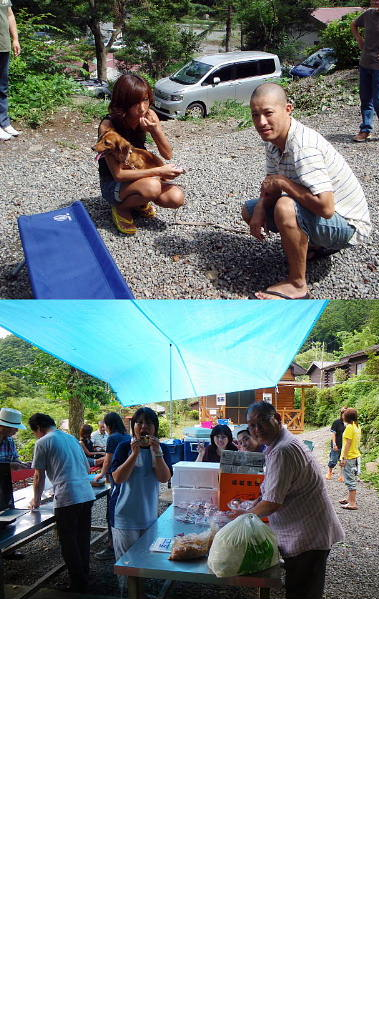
%!PS
<< /PageSize [379 1020] >> setpagedevice
/picture { 5 dict begin { /h /w /y /x /name } { exch def } forall
  gsave x y translate w h scale
  w h 8 [w 0 0 h 0 0] name (r) file false 3 colorimage grestore end } def
0 1020 translate 1 -1 scale
4 setmiterlimit
1 setgray
0 0 379 1020 rectfill
(img1.rgb) 0 0 379 599 picture
showpage
